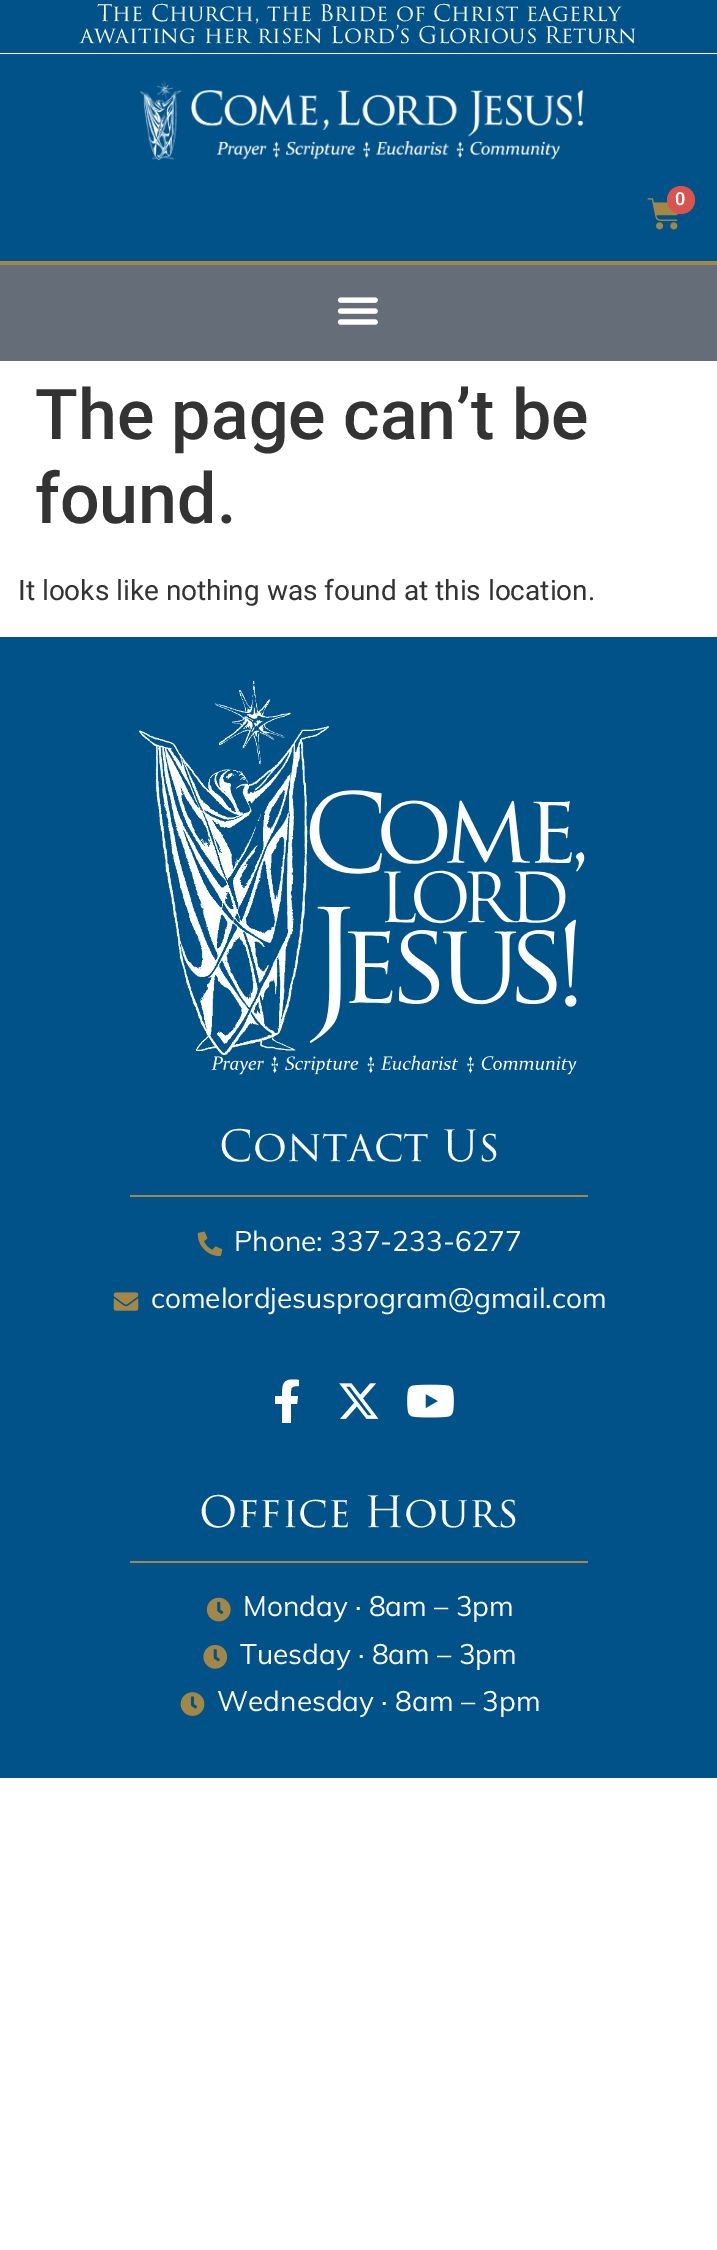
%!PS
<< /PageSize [717 2250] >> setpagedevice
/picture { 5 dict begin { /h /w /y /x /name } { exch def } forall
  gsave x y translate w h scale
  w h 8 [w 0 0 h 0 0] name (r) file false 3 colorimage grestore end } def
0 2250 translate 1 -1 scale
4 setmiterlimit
1 setgray
0 0 717 2250 rectfill
0 0.322 0.533 setrgbcolor
0 0 717 53 rectfill
/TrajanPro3-Regular [22.4 0 0 -22.4 0 0] selectfont
1 setgray
97 21 moveto (The Church, the Bride of Christ eagerly) show
80 43 moveto (awaiting her risen Lord’s Glorious Return) show
0 0.322 0.533 setrgbcolor
0 54 717 207 rectfill
(img1.rgb) 140 80 444 81 picture
(img2.rgb) 647 198 32 32 picture
0.851 0.325 0.31 setrgbcolor
newpath 681 200 14 0 360 arc closepath fill
/Roboto-SemiBold [18 0 0 -18 0 0] selectfont
1 setgray
675 205 moveto (0) show
0.396 0.427 0.471 setrgbcolor
0 265 717 96 rectfill
0.635 0.529 0.278 setrgbcolor
0 261 717 4 rectfill
(img3.rgb) 337 297 41 28 picture
/Roboto-Medium [70 0 0 -70 0 0] selectfont
0.2 setgray
35 439 moveto (The page can’t be) show
35 523 moveto (found.) show
/Roboto-Regular [28 0 0 -28 0 0] selectfont
18 600 moveto (It looks like nothing was found at this location.) show
0 0.322 0.533 setrgbcolor
0 637 717 1141 rectfill
(img4.rgb) 138 680 447 395 picture
/TrajanPro3-Regular [42 0 0 -42 0 0] selectfont
1 setgray
219 1161 moveto (Contact Us) show
0.635 0.529 0.278 setrgbcolor
130 1195 458 2 rectfill
(img5.rgb) 197 1231 26 26 picture
/Muli-Regular [28 0 0 -28 0 0] selectfont
1 setgray
234 1251 moveto (Phone: 337-233-6277) show
(img6.rgb) 113 1292 26 19 picture
151 1308 moveto (comelordjesusprogram@gmail.com) show
newpath 297 1404 moveto 291 1404 lineto 291 1423 lineto 282 1423 lineto 282 1404 lineto 275 1404 lineto 275 1396 lineto 282 1396 lineto 282 1382 284 1378 299 1380 curveto 299 1386 lineto 290 1386 291 1388 291 1396 curveto 298 1396 lineto closepath fill
(img7.rgb) 339 1383 40 36 picture
(img8.rgb) 407 1384 47 34 picture
/TrajanPro3-Regular [42 0 0 -42 0 0] selectfont
199 1527 moveto (Office Hours) show
0.635 0.529 0.278 setrgbcolor
130 1561 458 2 rectfill
(img9.rgb) 206 1597 25 25 picture
/Muli-Regular [28 0 0 -28 0 0] selectfont
1 setgray
243 1616 moveto (Monday · 8am – 3pm) show
(img10.rgb) 203 1644 25 25 picture
240 1664 moveto (Tuesday · 8am – 3pm) show
(img11.rgb) 180 1692 25 24 picture
217 1711 moveto (Wednesday · 8am – 3pm) show
showpage
